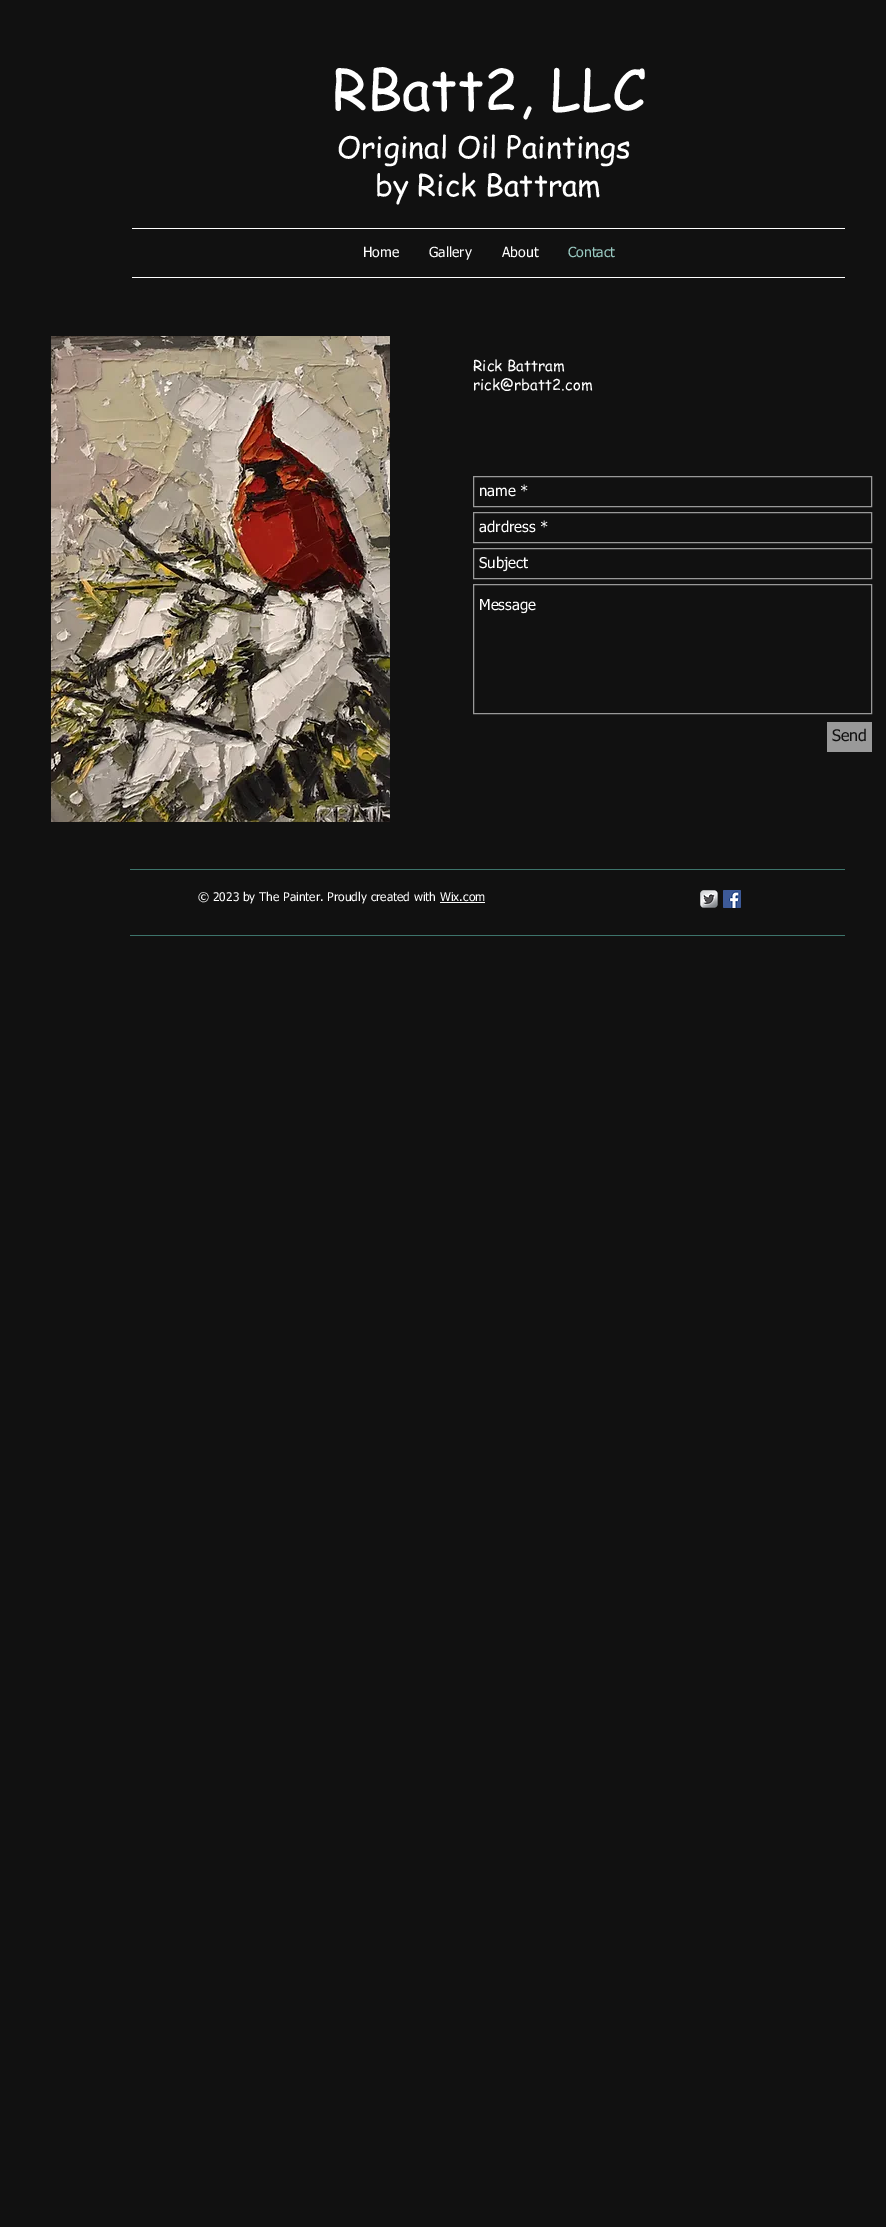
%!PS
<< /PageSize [886 2227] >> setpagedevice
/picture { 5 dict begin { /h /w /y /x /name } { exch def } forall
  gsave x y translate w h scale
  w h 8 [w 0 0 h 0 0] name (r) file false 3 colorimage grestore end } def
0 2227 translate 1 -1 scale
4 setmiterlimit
0.067 setgray
0 0 886 2227 rectfill
/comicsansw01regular-Regular [56 0 0 -56 0 0] selectfont
1 setgray
332 110 moveto (RBatt2, LLC) show
/comicsansw01regular-Regular [30 0 0 -30 0 0] selectfont
337 158 moveto (Original Oil Paintings) show
375 196 moveto (by Rick Battram) show
132 228 713 1 rectfill
132 277 713 1 rectfill
/tahoma-Regular [14 0 0 -14 0 0] selectfont
363 257 moveto (Home) show
429 257 moveto (Gallery) show
502 257 moveto (About) show
0.6 0.788 0.757 setrgbcolor
568 257 moveto (Contact) show
(img1.rgb) 51 336 339 486 picture
/comicsansw01regular-Regular [15 0 0 -15 0 0] selectfont
1 setgray
473 371 moveto (Rick Battram) show
473 390 moveto (rick@rbatt2.com) show
0.6 setgray
473.5 476.5 398 30 rectstroke
/tahoma-Regular [15 0 0 -15 0 0] selectfont
1 setgray
479 496 moveto (name *) show
0.6 setgray
473.5 512.5 398 30 rectstroke
1 setgray
479 532 moveto (adrdress *) show
0.6 setgray
473.5 548.5 398 30 rectstroke
1 setgray
479 568 moveto (Subject) show
0.6 setgray
473.5 584.5 398 129 rectstroke
1 setgray
479 610 moveto (Message) show
0.6 setgray
827 722 45 30 rectfill
/tahoma-Regular [16 0 0 -16 0 0] selectfont
0.067 setgray
832 741 moveto (Send) show
0.239 0.455 0.42 setrgbcolor
130 869 715 1 rectfill
/tahoma-Regular [12 0 0 -12 0 0] selectfont
1 setgray
198 901 moveto (© 2023 by The Painter. Proudly created with Wix.com) show
440 902 45 1 rectfill
(img2.rgb) 700 890 18 18 picture
(img3.rgb) 723 890 18 18 picture
0.239 0.455 0.42 setrgbcolor
130 935 715 1 rectfill
showpage
